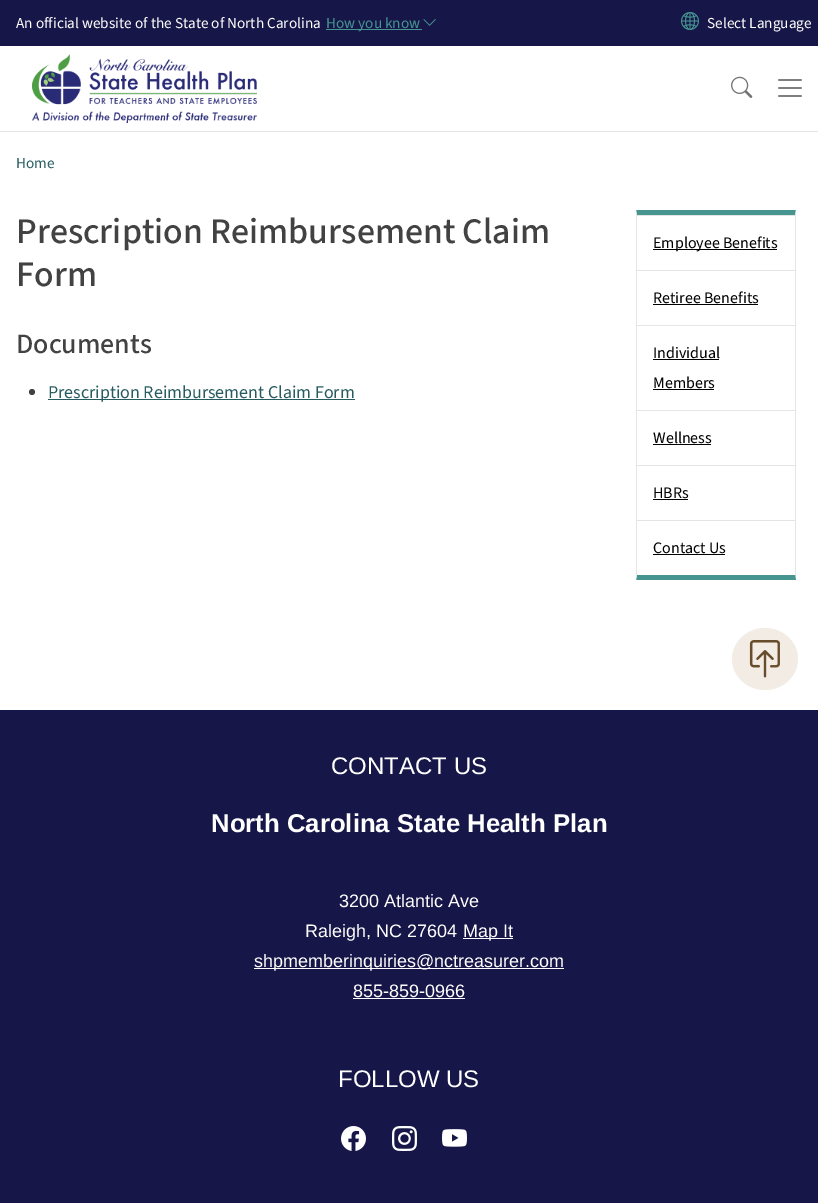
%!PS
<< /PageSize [818 1203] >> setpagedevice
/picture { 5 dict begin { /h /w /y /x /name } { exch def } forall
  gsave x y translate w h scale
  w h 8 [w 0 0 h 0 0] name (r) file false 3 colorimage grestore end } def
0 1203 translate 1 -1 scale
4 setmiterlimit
1 setgray
0 0 818 1203 rectfill
0.898 setgray
0 131 818 1 rectfill
0.086 0.09 0.282 setrgbcolor
0 0 818 46 rectfill
/SourceSans3-Regular [15.25 0 0 -15.25 0 0] selectfont
1 setgray
16 28 moveto (An official website of the State of North Carolina) show
0.275 0.584 0.569 setrgbcolor
326 29 96 1 rectfill
326 28 moveto (How you know) show
(img1.rgb) 423 19 13 7 picture
(img2.rgb) 681 12 18 18 picture
1 setgray
707 28 moveto (Select Language) show
(img3.rgb) 32 54 225 69 picture
(img4.rgb) 731 76 22 22 picture
(img5.rgb) 778 79 24 18 picture
0.149 0.357 0.373 setrgbcolor
16 168 moveto (Home) show
/SourceSans3-Medium [36 0 0 -36 0 0] selectfont
0.259 setgray
16 243 moveto (Prescription Reimbursement Claim) show
16 286 moveto (Form) show
/SourceSans3-Medium [28 0 0 -28 0 0] selectfont
16 353 moveto (Documents) show
newpath 32 392 3 0 360 arc closepath fill
0.149 0.357 0.373 setrgbcolor
48 399 307 1 rectfill
/SourceSans3-Regular [18 0 0 -18 0 0] selectfont
48 398 moveto (Prescription Reimbursement Claim Form) show
0.275 0.584 0.569 setrgbcolor
newpath 636 210 moveto 796 210 lineto 795 215 lineto 637 215 lineto closepath fill
0.898 setgray
newpath 796 210 moveto 796 580 lineto 795 575 lineto 795 215 lineto closepath fill
0.275 0.584 0.569 setrgbcolor
newpath 796 580 moveto 636 580 lineto 637 575 lineto 795 575 lineto closepath fill
0.898 setgray
newpath 636 580 moveto 636 210 lineto 637 215 lineto 637 575 lineto closepath fill
637 215 158 1 rectfill
0 setgray
653 249 124 1 rectfill
/SourceSans3-Regular [16 0 0 -16 0 0] selectfont
653 248 moveto (Employee Benefits) show
0.898 setgray
637 270 158 1 rectfill
0 setgray
653 303 moveto (Retiree Benefits) show
653 304 105 1 rectfill
0.898 setgray
637 325 158 1 rectfill
0 setgray
653 358 moveto (Individual) show
653 359 66 1 rectfill
653 388 moveto (Members) show
653 389 61 1 rectfill
0.898 setgray
637 410 158 1 rectfill
0 setgray
653 443 moveto (Wellness) show
653 444 58 1 rectfill
0.898 setgray
637 465 158 1 rectfill
0 setgray
653 498 moveto (HBRs) show
653 499 35 1 rectfill
0.898 setgray
637 520 158 1 rectfill
0 setgray
653 553 moveto (Contact Us) show
653 554 72 1 rectfill
0.949 0.925 0.894 setrgbcolor
newpath 765 628 moveto 783 628 798 642 798 659 curveto 798 676 783 690 765 690 curveto 747 690 732 676 732 659 curveto 732 642 747 628 765 628 curveto closepath fill
(img6.rgb) 749 640 31 38 picture
0.086 0.09 0.282 setrgbcolor
0 710 818 493 rectfill
/LiberationSans-Regular [24 0 0 -24 0 0] selectfont
1 setgray
331 774 moveto (CONTACT US) show
/LiberationSans-Bold [25.75 0 0 -25.75 0 0] selectfont
211 832 moveto (North Carolina State Health Plan) show
/LiberationSans-Regular [18 0 0 -18 0 0] selectfont
339 907 moveto (3200 Atlantic Ave) show
305 937 moveto (Raleigh, NC 27604) show
463 938 50 1 rectfill
463 937 moveto (Map It) show
254 968 310 1 rectfill
254 967 moveto (shpmemberinquiries@nctreasurer.com) show
353 997 moveto (855-859-0966) show
353 998 112 1 rectfill
/LiberationSans-Regular [24 0 0 -24 0 0] selectfont
338 1087 moveto (FOLLOW US) show
(img7.rgb) 341 1126 25 25 picture
(img8.rgb) 392 1126 25 25 picture
(img9.rgb) 442 1129 25 18 picture
showpage
